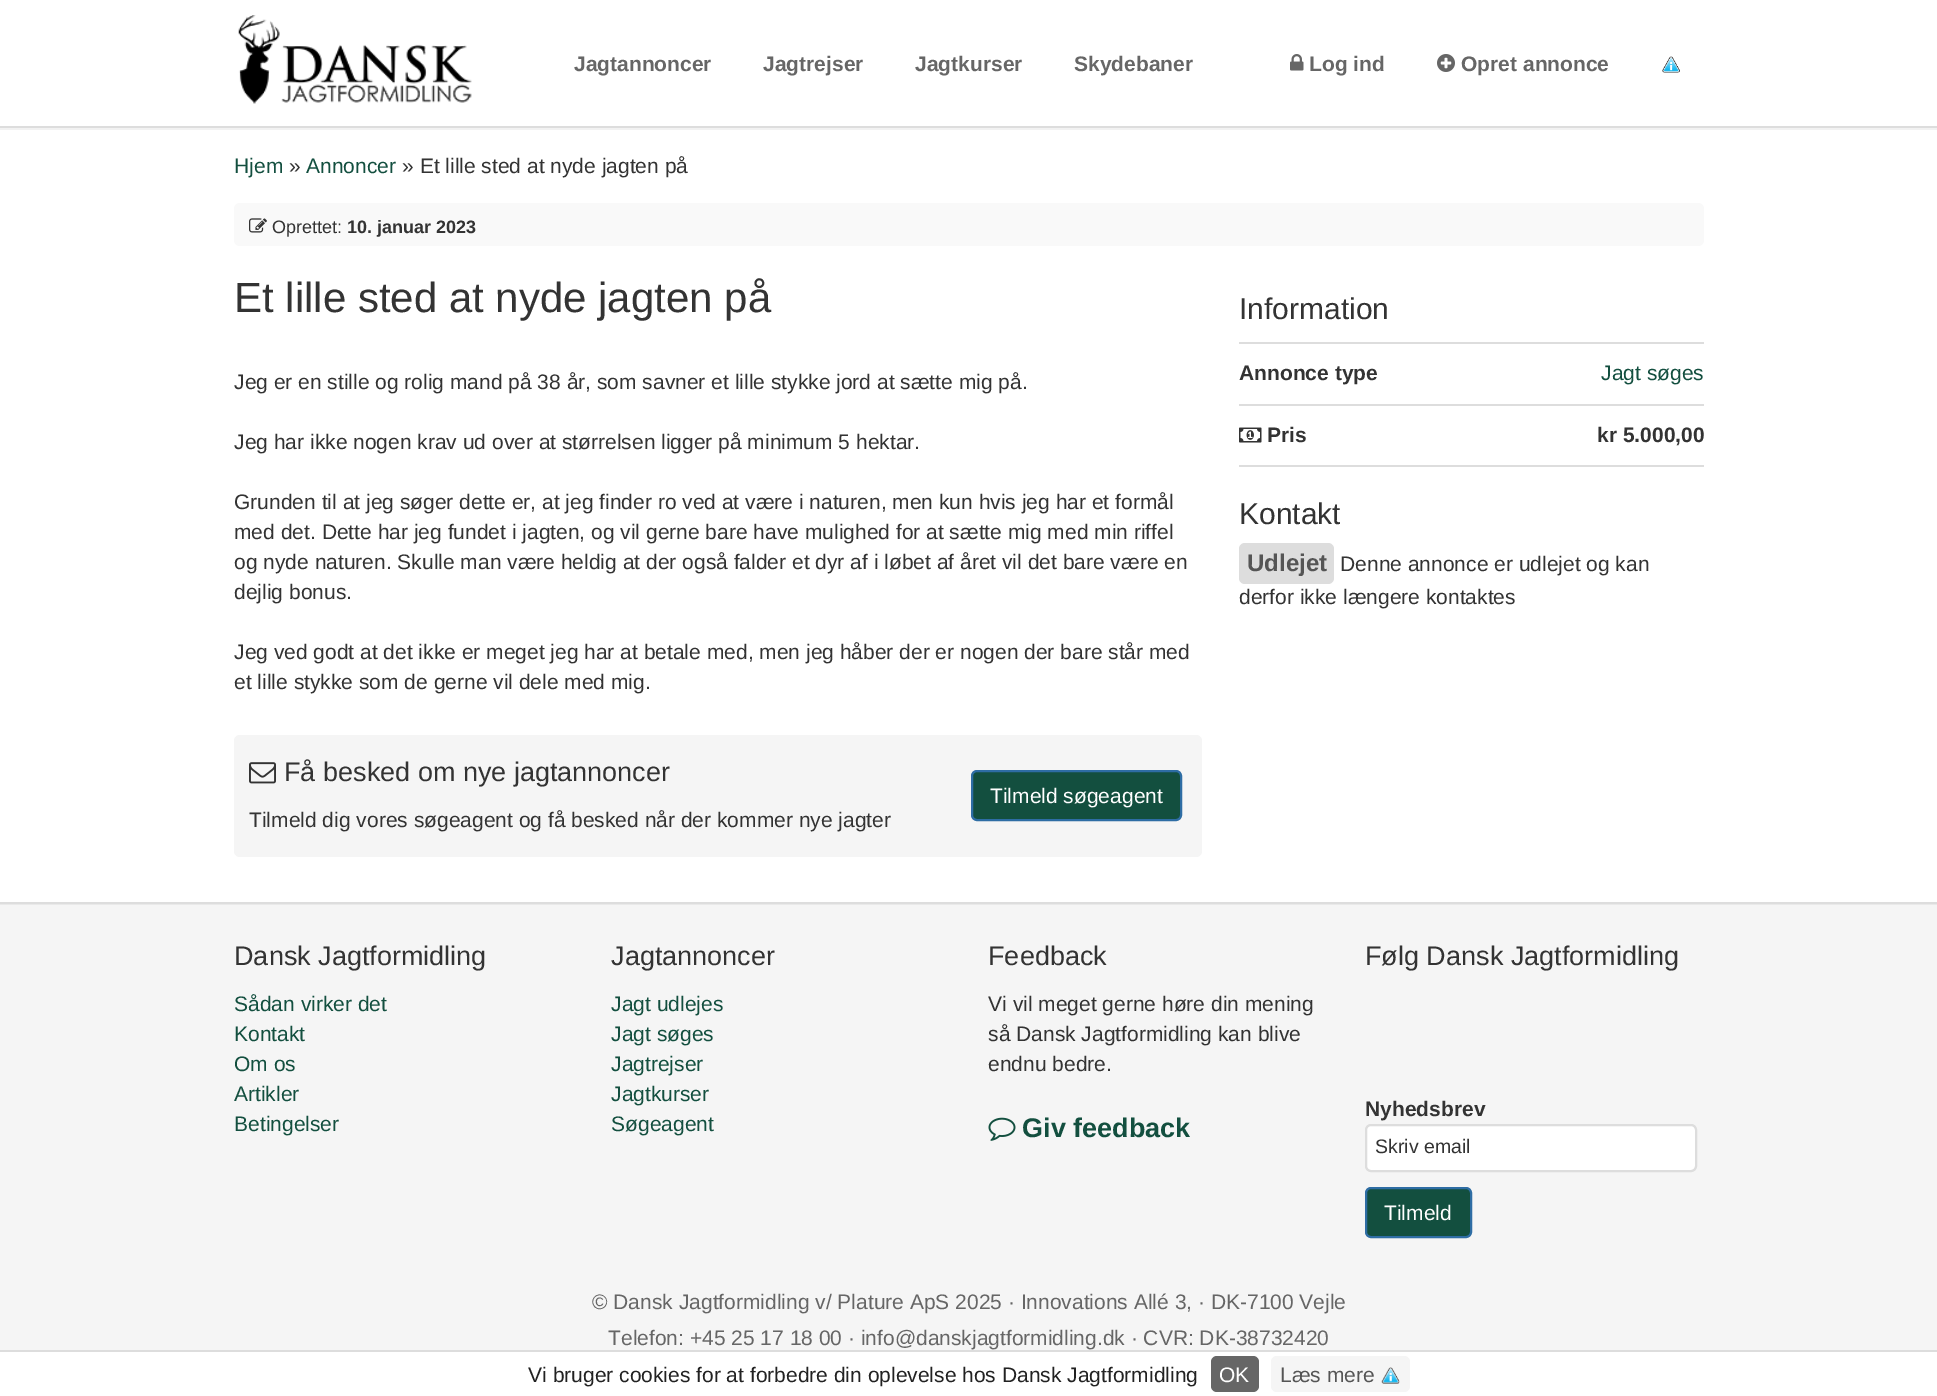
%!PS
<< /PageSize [1937 1396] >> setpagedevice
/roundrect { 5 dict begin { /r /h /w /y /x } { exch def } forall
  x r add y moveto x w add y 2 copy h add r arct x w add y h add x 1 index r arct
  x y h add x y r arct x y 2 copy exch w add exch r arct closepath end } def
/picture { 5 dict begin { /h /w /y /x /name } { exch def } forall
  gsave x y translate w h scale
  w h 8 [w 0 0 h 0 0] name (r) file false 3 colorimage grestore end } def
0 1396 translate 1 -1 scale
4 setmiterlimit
1 setgray
0 0 1937 1396 rectfill
0.867 setgray
0 126 1937 2 rectfill
(img1.rgb) 238 15 234 89 picture
/LiberationSans-Bold [21 0 0 -21 0 0] selectfont
0.4 setgray
574 71 moveto (Jagtannoncer) show
763 71 moveto (Jagtrejser) show
915 71 moveto (Jagtkurser) show
1074 71 moveto (Skydebaner) show
(img2.rgb) 1290 54 14 17 picture
1309 71 moveto (Log ind) show
(img3.rgb) 1437 54 18 18 picture
1461 71 moveto (Opret annonce) show
(img4.rgb) 1662 56 18 17 picture
0.949 setgray
0 128 1937 2 rectfill
/LiberationSans-Regular [21 0 0 -21 0 0] selectfont
0.075 0.31 0.247 setrgbcolor
234 173 moveto (Hjem) show
0.2 setgray
289 173 moveto (») show
0.075 0.31 0.247 setrgbcolor
306 173 moveto (Annoncer) show
0.2 setgray
402 173 moveto (» Et lille sted at nyde jagten på) show
0.976 setgray
234 203 1470 43 6 roundrect fill
(img5.rgb) 249 218 18 15 picture
/LiberationSans-Regular [18 0 0 -18 0 0] selectfont
0.2 setgray
272 233 moveto (Oprettet:) show
/LiberationSans-Bold [18 0 0 -18 0 0] selectfont
347 233 moveto (10. januar 2023) show
/LiberationSans-Regular [42 0 0 -42 0 0] selectfont
234 312 moveto (Et lille sted at nyde jagten på) show
/LiberationSans-Regular [21 0 0 -21 0 0] selectfont
234 389 moveto (Jeg er en stille og rolig mand på 38 år, som savner et lille stykke jord at sætte mig på.) show
234 449 moveto (Jeg har ikke nogen krav ud over at størrelsen ligger på minimum 5 hektar.) show
234 509 moveto (Grunden til at jeg søger dette er, at jeg finder ro ved at være i naturen, men kun hvis jeg har et formål) show
234 539 moveto (med det. Dette har jeg fundet i jagten, og vil gerne bare have mulighed for at sætte mig med min riffel) show
234 569 moveto (og nyde naturen. Skulle man være heldig at der også falder et dyr af i løbet af året vil det bare være en) show
234 599 moveto (dejlig bonus.) show
234 659 moveto (Jeg ved godt at det ikke er meget jeg har at betale med, men jeg håber der er nogen der bare står med) show
234 689 moveto (et lille stykke som de gerne vil dele med mig.) show
0.961 setgray
234 735 968 122 6 roundrect fill
(img6.rgb) 249 762 27 22 picture
/LiberationSans-Regular [27 0 0 -27 0 0] selectfont
0.2 setgray
284 781 moveto (Få besked om nye jagtannoncer) show
/LiberationSans-Regular [21 0 0 -21 0 0] selectfont
249 827 moveto (Tilmeld dig vores søgeagent og få besked når der kommer nye jagter) show
0.075 0.31 0.247 setrgbcolor
972 771 209 49 5 roundrect gsave fill grestore
0.18 0.427 0.643 setrgbcolor
2 setlinewidth
stroke
1 setgray
990 803 moveto (Tilmeld søgeagent) show
/LiberationSans-Regular [30 0 0 -30 0 0] selectfont
0.2 setgray
1239 319 moveto (Information) show
0.867 setgray
1239 342 465 2 rectfill
/LiberationSans-Bold [21 0 0 -21 0 0] selectfont
0.2 setgray
1239 380 moveto (Annonce type) show
/LiberationSans-Regular [21 0 0 -21 0 0] selectfont
0.075 0.31 0.247 setrgbcolor
1601 380 moveto (Jagt søges) show
0.867 setgray
1239 404 465 2 rectfill
1239 465 465 2 rectfill
(img7.rgb) 1239 427 23 16 picture
/LiberationSans-Bold [21 0 0 -21 0 0] selectfont
0.2 setgray
1267 442 moveto (Pris) show
1597 442 moveto (kr 5.000,00) show
/LiberationSans-Regular [30 0 0 -30 0 0] selectfont
1239 524 moveto (Kontakt) show
0.867 setgray
1239 543 95 41 6 roundrect fill
/LiberationSans-Bold [24 0 0 -24 0 0] selectfont
0.333 setgray
1247 571 moveto (Udlejet) show
/LiberationSans-Regular [21 0 0 -21 0 0] selectfont
0.2 setgray
1340 571 moveto (Denne annonce er udlejet og kan) show
1239 604 moveto (derfor ikke længere kontaktes) show
0.961 setgray
0 905 1937 445 rectfill
0.914 setgray
0 904 1937 1 rectfill
0.867 setgray
0 902 1937 2 rectfill
/LiberationSans-Regular [27 0 0 -27 0 0] selectfont
0.2 setgray
234 965 moveto (Dansk Jagtformidling) show
/LiberationSans-Regular [21 0 0 -21 0 0] selectfont
0.075 0.31 0.247 setrgbcolor
234 1011 moveto (Sådan virker det) show
234 1041 moveto (Kontakt) show
234 1071 moveto (Om os) show
234 1101 moveto (Artikler) show
234 1131 moveto (Betingelser) show
/LiberationSans-Regular [27 0 0 -27 0 0] selectfont
0.2 setgray
611 965 moveto (Jagtannoncer) show
/LiberationSans-Regular [21 0 0 -21 0 0] selectfont
0.075 0.31 0.247 setrgbcolor
611 1011 moveto (Jagt udlejes) show
611 1041 moveto (Jagt søges) show
611 1071 moveto (Jagtrejser) show
611 1101 moveto (Jagtkurser) show
611 1131 moveto (Søgeagent) show
/LiberationSans-Regular [27 0 0 -27 0 0] selectfont
0.2 setgray
988 965 moveto (Feedback) show
/LiberationSans-Regular [21 0 0 -21 0 0] selectfont
988 1011 moveto (Vi vil meget gerne høre din mening) show
988 1041 moveto (så Dansk Jagtformidling kan blive) show
988 1071 moveto (endnu bedre.) show
(img8.rgb) 988 1117 28 24 picture
/LiberationSans-Bold [27 0 0 -27 0 0] selectfont
0.075 0.31 0.247 setrgbcolor
1022 1137 moveto (Giv feedback) show
/LiberationSans-Regular [27 0 0 -27 0 0] selectfont
0.2 setgray
1365 965 moveto (Følg Dansk Jagtformidling) show
/LiberationSans-Bold [21 0 0 -21 0 0] selectfont
1365 1116 moveto (Nyhedsbrev) show
1 setgray
1366 1125 330 46 5 roundrect gsave fill grestore
0.867 setgray
stroke
/LiberationSans-Regular [19.5 0 0 -19.5 0 0] selectfont
0.2 setgray
1375 1153 moveto (Skriv email) show
0.075 0.31 0.247 setrgbcolor
1366 1188 105 49 5 roundrect gsave fill grestore
0.18 0.427 0.643 setrgbcolor
stroke
/LiberationSans-Regular [21 0 0 -21 0 0] selectfont
1 setgray
1384 1220 moveto (Tilmeld) show
0.4 setgray
592 1309 moveto (© Dansk Jagtformidling v/ Plature ApS 2025 · Innovations Allé 3, · DK-7100 Vejle) show
608 1345 moveto (Telefon: +45 25 17 18 00 · info@danskjagtformidling.dk · CVR: DK-38732420) show
0.867 setgray
0 1350 1937 2 rectfill
0.133 setgray
528 1382 moveto (Vi bruger cookies for at forbedre din oplevelse hos Dansk Jagtformidling) show
0.4 setgray
1211 1356 48 36 6 roundrect fill
1 setgray
1219 1382 moveto (OK) show
0.961 setgray
1271 1356 139 36 6 roundrect fill
0.333 setgray
1280 1382 moveto (Læs mere) show
(img9.rgb) 1381 1367 19 17 picture
showpage
